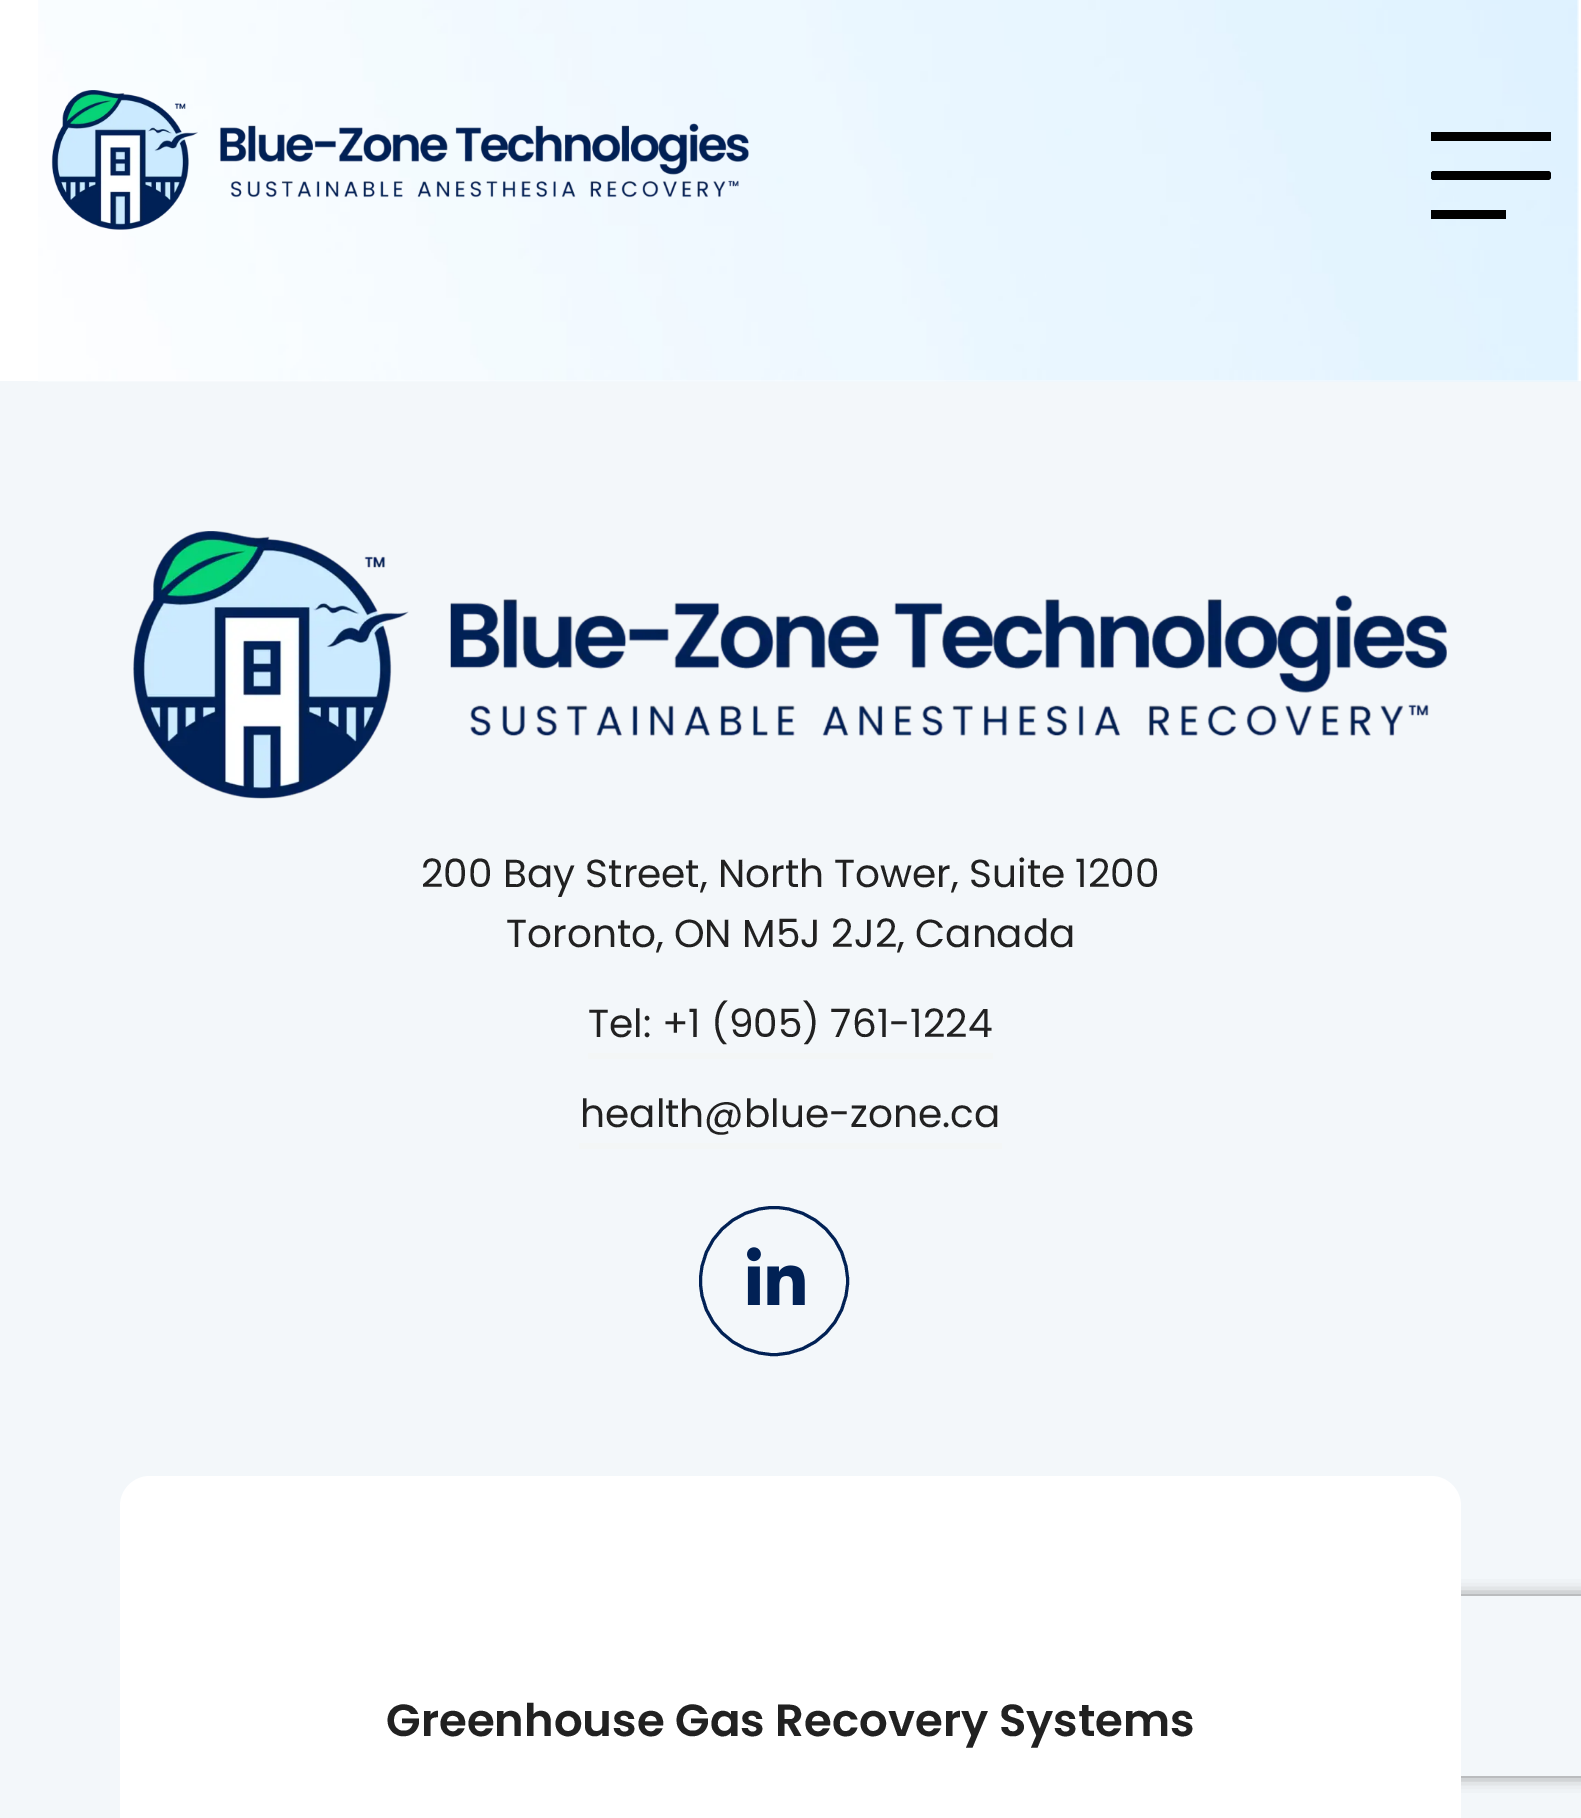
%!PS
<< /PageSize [1581 1818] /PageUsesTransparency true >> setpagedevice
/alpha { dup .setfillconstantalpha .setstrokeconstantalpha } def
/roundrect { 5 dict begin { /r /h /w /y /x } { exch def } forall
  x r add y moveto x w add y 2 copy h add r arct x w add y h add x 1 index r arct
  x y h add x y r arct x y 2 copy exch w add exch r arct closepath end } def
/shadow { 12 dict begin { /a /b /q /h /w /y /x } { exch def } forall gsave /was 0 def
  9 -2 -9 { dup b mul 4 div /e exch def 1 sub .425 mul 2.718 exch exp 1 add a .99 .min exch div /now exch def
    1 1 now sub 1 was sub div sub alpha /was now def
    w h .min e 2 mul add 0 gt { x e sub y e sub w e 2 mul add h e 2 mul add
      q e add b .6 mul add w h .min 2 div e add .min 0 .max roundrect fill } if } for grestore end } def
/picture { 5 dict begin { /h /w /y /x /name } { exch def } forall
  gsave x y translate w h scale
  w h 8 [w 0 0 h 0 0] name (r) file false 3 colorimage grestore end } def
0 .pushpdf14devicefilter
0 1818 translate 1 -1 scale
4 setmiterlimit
1 setgray
0 0 1581 1818 rectfill
0.953 0.969 0.98 setrgbcolor
0 381 1581 1437 rectfill
(img1.rgb) 38 0 1541 382 picture
(img2.rgb) 51 90 698 140 picture
0 setgray
1431 132 120 9 rectfill
1431 171 120 9 3 roundrect fill
1431 171 75 9 3 roundrect fill
1431 210 75 9 rectfill
(img3.rgb) 133 531 1314 268 picture
/Poppins-Regular [39 0 0 -39 0 0] selectfont
0.129 setgray
421 887 moveto (200 Bay Street, North Tower, Suite 1200) show
506 947 moveto (Toronto, ON M5J 2J2, Canada) show
588 1037 moveto (Tel: +1 \(905\) 761-1224) show
0.953 0.965 0.965 setrgbcolor
588 1053 405 6 rectfill
0.129 setgray
580 1127 moveto (health@blue-zone.ca) show
0.953 0.965 0.965 setrgbcolor
579 1143 423 6 rectfill
0.004 0.129 0.333 setrgbcolor
3 setlinewidth
newpath 774 1281 73.5 0 360 arc closepath stroke
(img4.rgb) 747 1247 58 58 picture
gsave
newpath 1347 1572 moveto 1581 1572 lineto 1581 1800 lineto 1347 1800 lineto closepath 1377 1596 moveto 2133 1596 lineto 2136.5 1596 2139 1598.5 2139 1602 curveto 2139 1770 lineto 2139 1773.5 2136.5 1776 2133 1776 curveto 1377 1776 lineto 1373.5 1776 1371 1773.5 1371 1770 curveto 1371 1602 lineto 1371 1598.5 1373.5 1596 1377 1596 curveto closepath eoclip newpath
0.502 setgray
1371 1596 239 180 6 7.5 1 shadow
grestore
1 setgray
120 1476 1341 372 30 roundrect fill
/Poppins-SemiBold [45 0 0 -45 0 0] selectfont
0.129 setgray
386 1736 moveto (Greenhouse Gas Recovery Systems) show
.poppdf14devicefilter showpage
